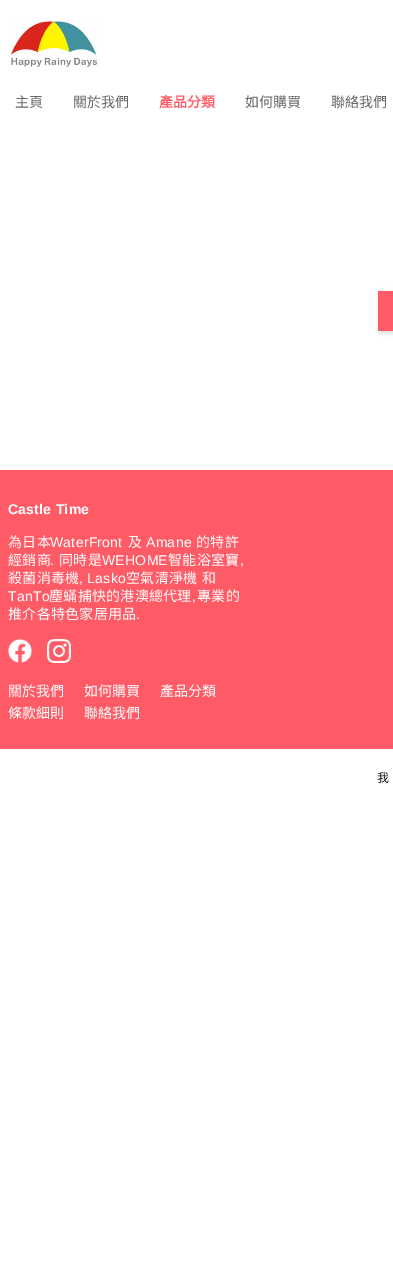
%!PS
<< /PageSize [393 1279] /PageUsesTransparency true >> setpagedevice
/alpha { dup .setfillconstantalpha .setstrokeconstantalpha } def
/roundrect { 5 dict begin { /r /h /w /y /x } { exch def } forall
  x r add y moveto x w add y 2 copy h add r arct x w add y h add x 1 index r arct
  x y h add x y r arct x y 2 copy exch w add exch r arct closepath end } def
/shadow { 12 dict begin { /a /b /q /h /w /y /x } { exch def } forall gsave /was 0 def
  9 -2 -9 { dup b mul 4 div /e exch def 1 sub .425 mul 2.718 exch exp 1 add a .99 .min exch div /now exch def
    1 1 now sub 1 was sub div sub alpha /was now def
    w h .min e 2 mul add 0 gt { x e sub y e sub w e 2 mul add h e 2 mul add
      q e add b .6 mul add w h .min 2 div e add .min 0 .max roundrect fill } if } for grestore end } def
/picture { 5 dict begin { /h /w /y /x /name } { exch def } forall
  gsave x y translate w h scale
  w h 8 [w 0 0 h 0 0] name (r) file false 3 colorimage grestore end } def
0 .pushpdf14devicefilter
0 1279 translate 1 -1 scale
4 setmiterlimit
1 setgray
0 0 393 1279 rectfill
(img1.rgb) 11 21 86 46 picture
/NotoSansCJKHK-Regular [14 0 0 -14 0 0] selectfont
0.4 setgray
15 107 moveto (主頁) show
73 107 moveto (關於我們) show
/NotoSansCJKHK-Bold [14 0 0 -14 0 0] selectfont
1 0.357 0.4 setrgbcolor
159 107 moveto (產品分類) show
/NotoSansCJKHK-Regular [14 0 0 -14 0 0] selectfont
0.4 setgray
245 107 moveto (如何購買) show
331 107 moveto (聯絡我們) show
0 setgray
380 293 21 40 0 2.5 0.15 shadow
1 0.357 0.4 setrgbcolor
378 291 15 40 rectfill
0 470 393 279 rectfill
/LiberationSans-Bold [14 0 0 -14 0 0] selectfont
1 setgray
8 514 moveto 0.25 0 (Castle Time) ashow
/NotoSansCJKHK-Regular [14 0 0 -14 0 0] selectfont
8 547 moveto 0.25 0 (為日本) ashow
/LiberationSans-Regular [14 0 0 -14 0 0] selectfont
50 547 moveto 0.25 0 (WaterFront) ashow
/NotoSansCJKHK-Regular [14 0 0 -14 0 0] selectfont
128 547 moveto 0.25 0 (及) ashow
/LiberationSans-Regular [14 0 0 -14 0 0] selectfont
146 547 moveto 0.25 0 (Amane) ashow
/NotoSansCJKHK-Regular [14 0 0 -14 0 0] selectfont
196 547 moveto 0.25 0 (的特許) ashow
8 565 moveto 0.25 0 (經銷商) ashow
/LiberationSans-Regular [14 0 0 -14 0 0] selectfont
50 565 moveto 0.25 0 (.) ashow
/NotoSansCJKHK-Regular [14 0 0 -14 0 0] selectfont
59 565 moveto 0.25 0 (同時是) ashow
/LiberationSans-Regular [14 0 0 -14 0 0] selectfont
102 565 moveto 0.25 0 (WEHOME) ashow
/NotoSansCJKHK-Regular [14 0 0 -14 0 0] selectfont
168 565 moveto 0.25 0 (智能浴室寶) ashow
/LiberationSans-Regular [14 0 0 -14 0 0] selectfont
240 565 moveto 0.25 0 (,) ashow
/NotoSansCJKHK-Regular [14 0 0 -14 0 0] selectfont
8 583 moveto 0.25 0 (殺菌消毒機) ashow
/LiberationSans-Regular [14 0 0 -14 0 0] selectfont
79 583 moveto 0.25 0 (, Lasko) ashow
/NotoSansCJKHK-Regular [14 0 0 -14 0 0] selectfont
126 583 moveto 0.25 0 (空氣清淨機) ashow
202 583 moveto 0.25 0 (和) ashow
/LiberationSans-Regular [14 0 0 -14 0 0] selectfont
8 601 moveto 0.25 0 (TanTo) ashow
/NotoSansCJKHK-Regular [14 0 0 -14 0 0] selectfont
49 601 moveto 0.25 0 (塵蟎捕快的港澳總代理) ashow
/LiberationSans-Regular [14 0 0 -14 0 0] selectfont
192 601 moveto 0.25 0 (,) ashow
/NotoSansCJKHK-Regular [14 0 0 -14 0 0] selectfont
197 601 moveto 0.25 0 (專業的) ashow
8 619 moveto 0.25 0 (推介各特色家居用品) ashow
/LiberationSans-Regular [14 0 0 -14 0 0] selectfont
136 619 moveto 0.25 0 (.) ashow
(img2.rgb) 8 639 24 24 picture
(img3.rgb) 47 639 24 24 picture
/NotoSansCJKHK-Regular [14 0 0 -14 0 0] selectfont
8 696 moveto (關於我們) show
84 696 moveto (如何購買) show
160 696 moveto (產品分類) show
8 718 moveto (條款細則) show
84 718 moveto (聯絡我們) show
/NotoSansCJKHK-Regular [12 0 0 -12 0 0] selectfont
0.071 setgray
377 782 moveto (我) show
.poppdf14devicefilter showpage
